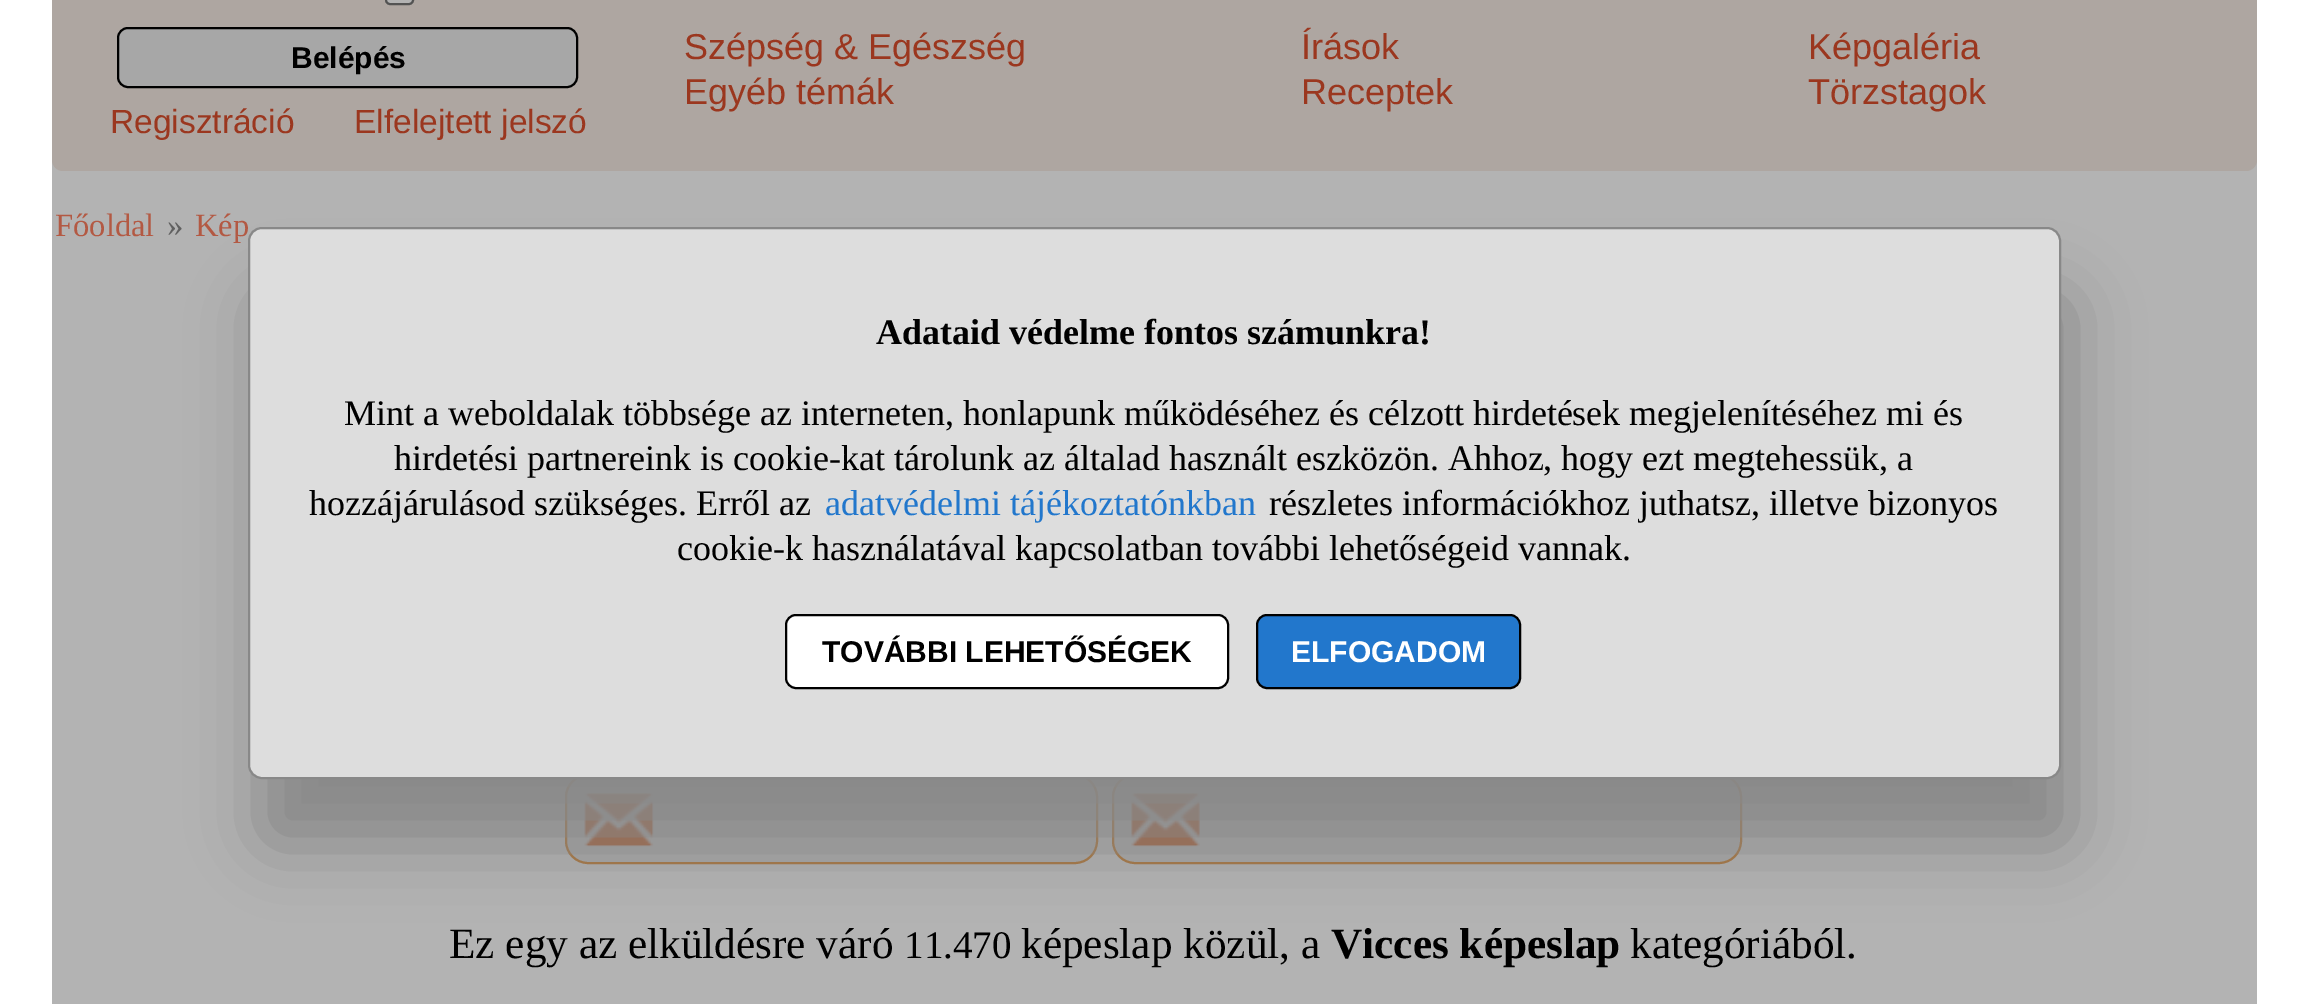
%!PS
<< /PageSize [2305 1004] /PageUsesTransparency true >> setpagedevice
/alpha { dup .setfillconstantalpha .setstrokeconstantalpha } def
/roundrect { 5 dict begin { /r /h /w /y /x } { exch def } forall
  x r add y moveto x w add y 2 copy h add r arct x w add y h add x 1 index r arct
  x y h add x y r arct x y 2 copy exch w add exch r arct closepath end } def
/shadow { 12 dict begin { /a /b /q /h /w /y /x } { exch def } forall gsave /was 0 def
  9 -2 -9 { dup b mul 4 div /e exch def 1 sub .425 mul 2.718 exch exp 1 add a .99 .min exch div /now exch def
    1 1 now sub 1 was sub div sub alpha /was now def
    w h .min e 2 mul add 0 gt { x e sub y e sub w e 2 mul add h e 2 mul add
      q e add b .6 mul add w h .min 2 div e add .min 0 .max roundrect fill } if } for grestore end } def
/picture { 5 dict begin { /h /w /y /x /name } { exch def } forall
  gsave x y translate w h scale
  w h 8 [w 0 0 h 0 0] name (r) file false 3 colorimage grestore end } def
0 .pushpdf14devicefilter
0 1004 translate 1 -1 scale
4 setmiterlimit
1 setgray
0 0 2305 1004 rectfill
0.702 setgray
52 160 2205 844 rectfill
0.682 0.651 0.631 setrgbcolor
52 -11 2205 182 11 roundrect fill
0.702 setgray
386 -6 27 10 4 roundrect gsave fill grestore
0.325 setgray
2 setlinewidth
stroke
0.655 setgray
118 28 459 59 10 roundrect gsave fill grestore
0 setgray
stroke
/LiberationSans-Bold [30 0 0 -30 0 0] selectfont
291 68 moveto (Belépés) show
/LiberationSans-Regular [33.5 0 0 -33.5 0 0] selectfont
0.608 0.216 0.122 setrgbcolor
110 133 moveto (Regisztráció) show
354 133 moveto (Elfelejtett jelszó) show
/LiberationSans-Regular [36 0 0 -36 0 0] selectfont
684 59 moveto (Szépség & Egészség) show
684 104 moveto (Egyéb témák) show
1301 59 moveto (Írások) show
1301 104 moveto (Receptek) show
1808 59 moveto (Képgaléria) show
1808 104 moveto (Törzstagok) show
/LiberationSerif-Regular [32.5 0 0 -32.5 0 0] selectfont
0.702 0.349 0.263 setrgbcolor
55 236 moveto (Főoldal) show
0.376 setgray
167 236 moveto (») show
0.702 0.349 0.263 setrgbcolor
195 236 moveto (Kép) show
0.655 setgray
566 775 531 88 22 roundrect gsave fill grestore
0.655 0.431 0.196 setrgbcolor
stroke
(img1.rgb) 584 793 70 54 picture
0.655 setgray
1113 775 628 88 22 roundrect gsave fill grestore
0.655 0.431 0.196 setrgbcolor
stroke
(img2.rgb) 1131 793 69 54 picture
/LiberationSerif-Regular [43.25 0 0 -43.25 0 0] selectfont
0 setgray
449 958 moveto (Ez egy az elküldésre váró) show
/LiberationSerif-Regular [39 0 0 -39 0 0] selectfont
904 958 moveto (11.470) show
/LiberationSerif-Regular [43.25 0 0 -43.25 0 0] selectfont
1021 958 moveto (képeslap közül, a) show
/LiberationSerif-Bold [43.25 0 0 -43.25 0 0] selectfont
1331 958 moveto (Vicces képeslap) show
/LiberationSerif-Regular [43.25 0 0 -43.25 0 0] selectfont
1630 958 moveto (kategóriából.) show
0.533 setgray
259 295 1813 551 14 34 1 shadow
0.867 setgray
249 228 1811 550 13 roundrect gsave fill grestore
0.533 setgray
stroke
/LiberationSerif-Bold [36 0 0 -36 0 0] selectfont
0 setgray
876 344 moveto (Adataid védelme fontos számunkra!) show
/LiberationSerif-Regular [36 0 0 -36 0 0] selectfont
344 425 moveto (Mint a weboldalak többsége az interneten, honlapunk működéséhez és célzott hirdetések megjelenítéséhez mi és) show
394 470 moveto (hirdetési partnereink is cookie-kat tárolunk az általad használt eszközön. Ahhoz, hogy ezt megtehessük, a) show
309 515 moveto (hozzájárulásod szükséges. Erről az) show
0.133 0.467 0.8 setrgbcolor
825 515 moveto (adatvédelmi tájékoztatónkban) show
0 setgray
1269 515 moveto (részletes információkhoz juthatsz, illetve bizonyos) show
677 560 moveto (cookie-k használatával kapcsolatban további lehetőségeid vannak.) show
1 setgray
786 615 442 73 10 roundrect gsave fill grestore
0 setgray
stroke
/LiberationSans-Bold [30 0 0 -30 0 0] selectfont
822 662 moveto (TOVÁBBI LEHETŐSÉGEK) show
0.133 0.467 0.8 setrgbcolor
1257 615 263 73 10 roundrect gsave fill grestore
0 setgray
stroke
1 setgray
1291 662 moveto (ELFOGADOM) show
.poppdf14devicefilter showpage
